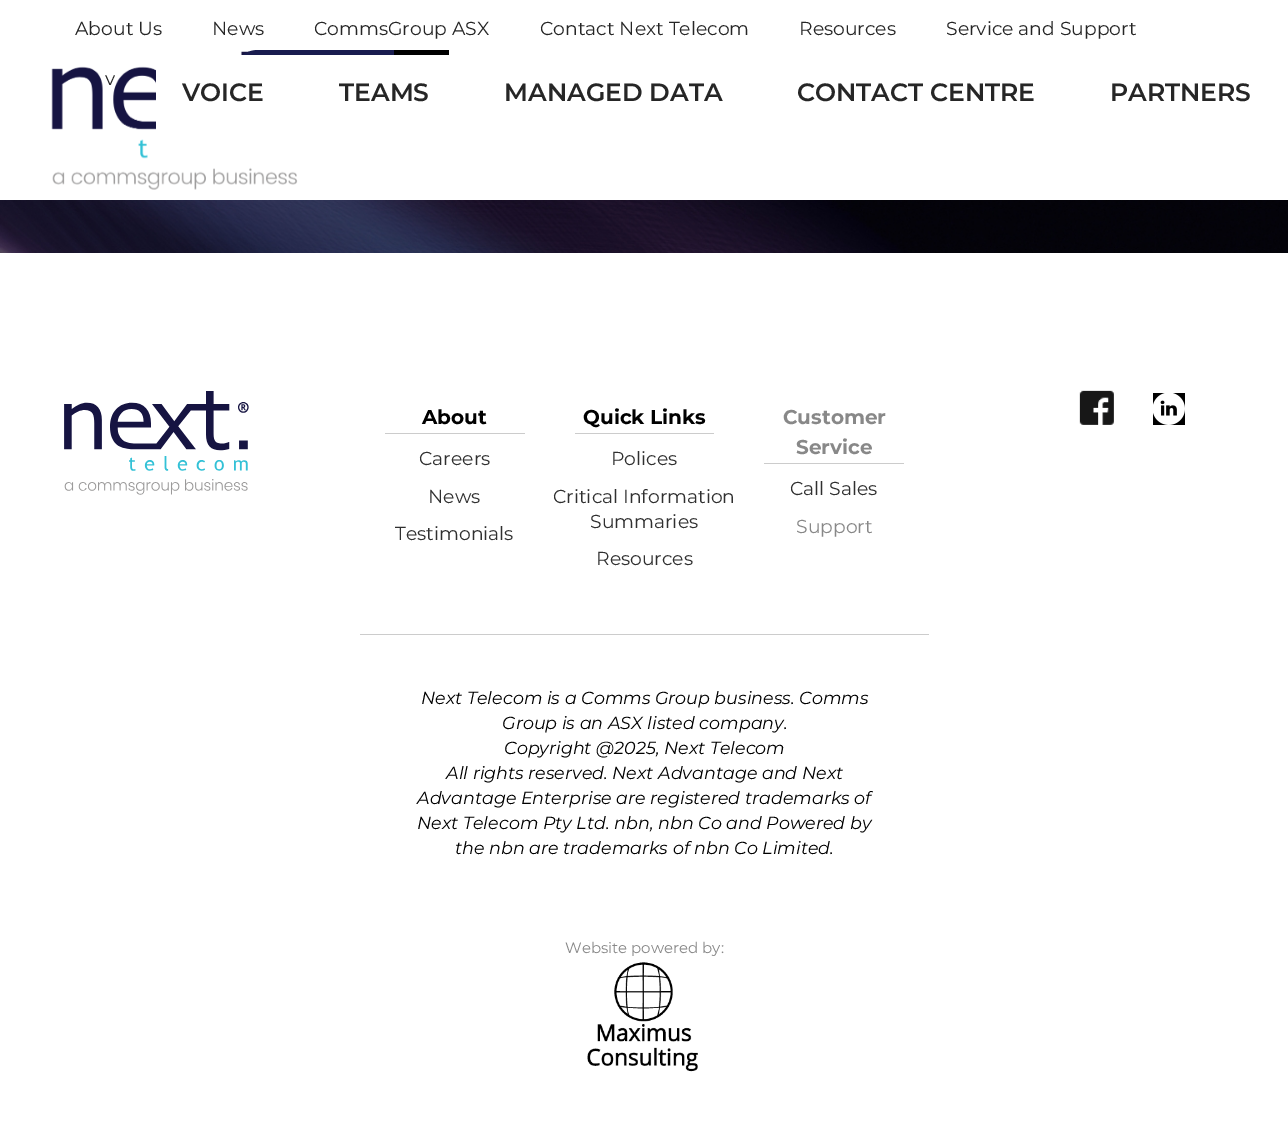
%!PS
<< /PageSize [1288 1123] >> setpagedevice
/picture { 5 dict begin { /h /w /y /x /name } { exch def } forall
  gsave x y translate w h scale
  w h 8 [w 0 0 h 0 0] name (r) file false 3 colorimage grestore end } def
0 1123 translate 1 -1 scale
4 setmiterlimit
1 setgray
0 0 1288 1123 rectfill
(img1.rgb) 0 200 1288 53 picture
/Montserrat-Regular [18.75 0 0 -18.75 0 0] selectfont
0.149 setgray
75 35 moveto (About Us) show
212 35 moveto (News) show
314 35 moveto (CommsGroup ASX) show
540 35 moveto (Contact Next Telecom) show
799 35 moveto (Resources) show
946 35 moveto (Service and Support) show
(img2.rgb) 51 51 247 139 picture
0.098 0.11 0.31 setrgbcolor
newpath 258 50 moveto 394 50 lineto 394 100 lineto 258 100 lineto 244 100 233 89 233 75 curveto 233 61 244 50 258 50 curveto closepath fill
0 setgray
394 50 55 5 rectfill
0.149 setgray
105 85 moveto (v) show
1 setgray
156 55 238 104 rectfill
/Montserrat-SemiBold [25 0 0 -25 0 0] selectfont
0.149 setgray
182 101 moveto (VOICE) show
339 101 moveto (TEAMS) show
504 101 moveto (MANAGED DATA) show
797 101 moveto (CONTACT CENTRE) show
1110 101 moveto (PARTNERS) show
(img3.rgb) 64 391 185 104 picture
0.8 setgray
360 634 569 1 rectfill
385 433 140 1 rectfill
/Montserrat-Bold [20 0 0 -20 0 0] selectfont
0 setgray
422 424 moveto (About) show
/Montserrat-Regular [18.75 0 0 -18.75 0 0] selectfont
0.188 setgray
419 465 moveto (Careers) show
428 503 moveto (News) show
395 540 moveto (Testimonials) show
0.8 setgray
575 433 139 1 rectfill
/Montserrat-Bold [20 0 0 -20 0 0] selectfont
0 setgray
583 424 moveto (Quick Links) show
/Montserrat-Regular [18.75 0 0 -18.75 0 0] selectfont
0.188 setgray
611 465 moveto (Polices) show
553 503 moveto (Critical Information) show
590 528 moveto (Summaries) show
596 565 moveto (Resources) show
0.8 setgray
764 463 140 1 rectfill
/Montserrat-Bold [20 0 0 -20 0 0] selectfont
0.533 setgray
783 424 moveto (Customer) show
796 454 moveto (Service) show
/Montserrat-Regular [18.75 0 0 -18.75 0 0] selectfont
0.188 setgray
790 495 moveto (Call Sales) show
0.533 setgray
796 533 moveto (Support) show
(img4.rgb) 1079 390 35 35 picture
0 setgray
1153 393 32 32 rectfill
(img5.rgb) 1153 393 32 32 picture
/Montserrat-Italic [17.5 0 0 -17.5 0 0] selectfont
421 704 moveto (Next Telecom is a Comms Group business. Comms) show
502 729 moveto (Group is an ASX listed company.) show
504 754 moveto (Copyright @2025, Next Telecom) show
446 779 moveto (All rights reserved. Next Advantage and Next) show
417 804 moveto (Advantage Enterprise are registered trademarks of) show
417 829 moveto (Next Telecom Pty Ltd. nbn, nbn Co and Powered by) show
455 854 moveto (the nbn are trademarks of nbn Co Limited.) show
/Montserrat-Regular [15 0 0 -15 0 0] selectfont
0.533 setgray
565 953 moveto (Website powered by:) show
(img6.rgb) 587 962 111 110 picture
showpage
